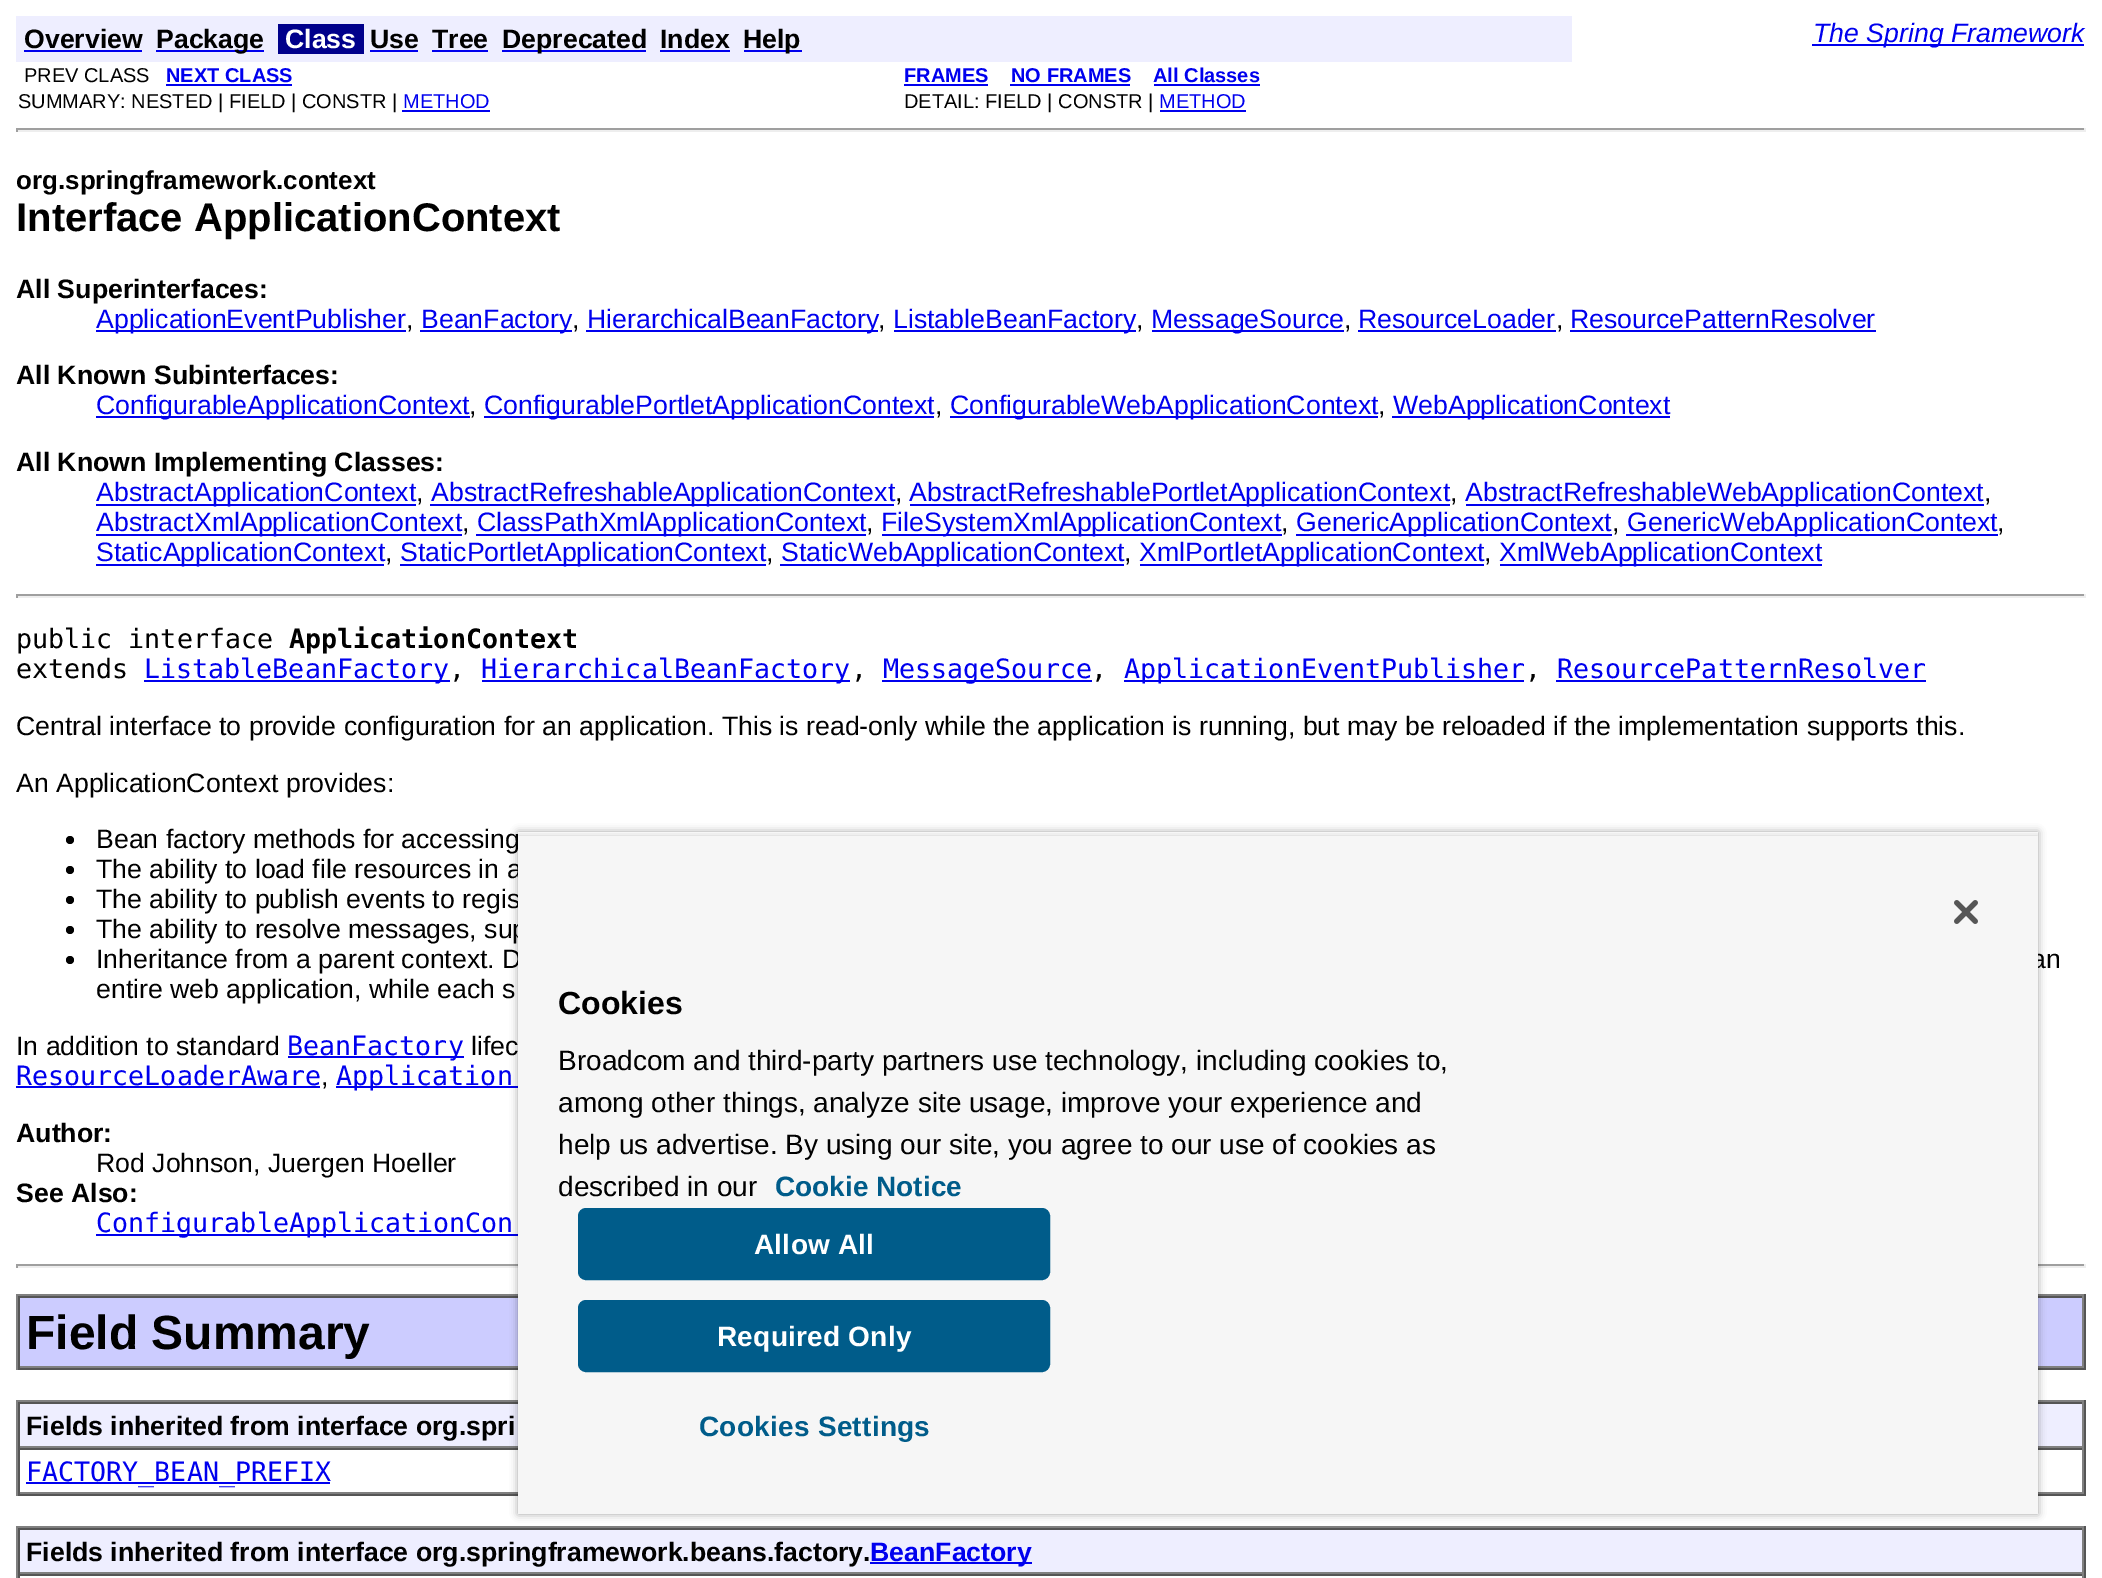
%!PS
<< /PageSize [2102 1578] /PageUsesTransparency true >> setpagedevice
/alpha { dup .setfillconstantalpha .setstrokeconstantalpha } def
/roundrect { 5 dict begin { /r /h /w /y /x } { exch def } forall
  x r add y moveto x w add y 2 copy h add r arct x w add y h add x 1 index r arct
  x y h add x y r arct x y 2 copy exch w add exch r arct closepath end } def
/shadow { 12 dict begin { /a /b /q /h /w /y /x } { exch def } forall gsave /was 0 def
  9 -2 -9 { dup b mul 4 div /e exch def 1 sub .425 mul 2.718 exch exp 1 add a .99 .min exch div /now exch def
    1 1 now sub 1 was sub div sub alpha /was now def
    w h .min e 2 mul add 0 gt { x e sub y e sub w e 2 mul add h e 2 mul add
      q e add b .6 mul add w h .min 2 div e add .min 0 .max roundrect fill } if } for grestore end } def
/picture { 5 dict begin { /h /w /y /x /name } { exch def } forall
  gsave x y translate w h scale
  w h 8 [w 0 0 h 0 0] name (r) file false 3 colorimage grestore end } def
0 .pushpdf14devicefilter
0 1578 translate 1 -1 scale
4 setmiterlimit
1 setgray
0 0 2102 1578 rectfill
0.933 0.933 1 setrgbcolor
16 16 1556 46 rectfill
/LiberationSans-Bold [26.67 0 0 -26.67 0 0] selectfont
0 setgray
24 48 moveto (Overview) show
0 0 0.933 setrgbcolor
24 50 118 2 rectfill
156 50 108 2 rectfill
0 setgray
156 48 moveto (Package) show
0 0 0.545 setrgbcolor
278 24 86 30 rectfill
1 setgray
285 48 moveto (Class) show
0 setgray
370 48 moveto (Use) show
0 0 0.933 setrgbcolor
370 50 48 2 rectfill
0 setgray
432 48 moveto (Tree) show
0 0 0.933 setrgbcolor
432 50 56 2 rectfill
502 50 144 2 rectfill
0 setgray
502 48 moveto (Deprecated) show
660 48 moveto (Index) show
0 0 0.933 setrgbcolor
660 50 70 2 rectfill
744 50 58 2 rectfill
0 setgray
743 48 moveto (Help) show
0 0 0.933 setrgbcolor
1812 44 272 2 rectfill
/LiberationSans-Italic [26.67 0 0 -26.67 0 0] selectfont
1813 42 moveto (The Spring Framework) show
/LiberationSans-Regular [20 0 0 -20 0 0] selectfont
0 setgray
24 82 moveto (PREV CLASS) show
/LiberationSans-Bold [20 0 0 -20 0 0] selectfont
0 0 0.933 setrgbcolor
166 82 moveto (NEXT CLASS) show
166 84 126 2 rectfill
904 82 moveto (FRAMES) show
904 84 84 2 rectfill
1011 82 moveto (NO FRAMES) show
1010 84 120 2 rectfill
1153 82 moveto (All Classes) show
1154 84 106 2 rectfill
/LiberationSans-Regular [20 0 0 -20 0 0] selectfont
0 setgray
18 108 moveto (SUMMARY: NESTED | FIELD | CONSTR |) show
0 0 0.933 setrgbcolor
403 108 moveto (METHOD) show
402 110 88 2 rectfill
0 setgray
904 108 moveto (DETAIL: FIELD | CONSTR |) show
0 0 0.933 setrgbcolor
1159 108 moveto (METHOD) show
1160 110 86 2 rectfill
0.624 setgray
16 128 2070 2 rectfill
0.933 setgray
2084 128 2 4 rectfill
16 130 2070 2 rectfill
0.624 setgray
16 128 2 4 rectfill
/LiberationSans-Bold [26 0 0 -26 0 0] selectfont
0 setgray
16 189 moveto (org.springframework.context) show
/LiberationSans-Bold [40 0 0 -40 0 0] selectfont
16 231 moveto (Interface ApplicationContext) show
/LiberationSans-Bold [26.67 0 0 -26.67 0 0] selectfont
16 298 moveto (All Superinterfaces:) show
0 0 0.933 setrgbcolor
96 330 310 2 rectfill
/LiberationSans-Regular [26.67 0 0 -26.67 0 0] selectfont
96 328 moveto (ApplicationEventPublisher) show
0 setgray
406 328 moveto (,) show
0 0 0.933 setrgbcolor
420 330 152 2 rectfill
421 328 moveto (BeanFactory) show
0 setgray
572 328 moveto (,) show
0 0 0.933 setrgbcolor
586 330 292 2 rectfill
587 328 moveto (HierarchicalBeanFactory) show
0 setgray
878 328 moveto (,) show
0 0 0.933 setrgbcolor
894 330 242 2 rectfill
893 328 moveto (ListableBeanFactory) show
0 setgray
1136 328 moveto (,) show
0 0 0.933 setrgbcolor
1152 330 192 2 rectfill
1151 328 moveto (MessageSource) show
0 setgray
1344 328 moveto (,) show
0 0 0.933 setrgbcolor
1358 328 moveto (ResourceLoader) show
1358 330 198 2 rectfill
0 setgray
1556 328 moveto (,) show
0 0 0.933 setrgbcolor
1570 328 moveto (ResourcePatternResolver) show
1570 330 306 2 rectfill
/LiberationSans-Bold [26.67 0 0 -26.67 0 0] selectfont
0 setgray
16 384 moveto (All Known Subinterfaces:) show
0 0 0.933 setrgbcolor
96 416 374 2 rectfill
/LiberationSans-Regular [26.67 0 0 -26.67 0 0] selectfont
96 414 moveto (ConfigurableApplicationContext) show
0 setgray
469 414 moveto (,) show
0 0 0.933 setrgbcolor
484 416 450 2 rectfill
484 414 moveto (ConfigurablePortletApplicationContext) show
0 setgray
935 414 moveto (,) show
0 0 0.933 setrgbcolor
950 416 428 2 rectfill
950 414 moveto (ConfigurableWebApplicationContext) show
0 setgray
1378 414 moveto (,) show
0 0 0.933 setrgbcolor
1392 416 278 2 rectfill
1393 414 moveto (WebApplicationContext) show
/LiberationSans-Bold [26.67 0 0 -26.67 0 0] selectfont
0 setgray
16 471 moveto (All Known Implementing Classes:) show
0 0 0.933 setrgbcolor
96 504 320 2 rectfill
/LiberationSans-Regular [26.67 0 0 -26.67 0 0] selectfont
96 501 moveto (AbstractApplicationContext) show
0 setgray
416 501 moveto (,) show
0 0 0.933 setrgbcolor
430 504 464 2 rectfill
431 501 moveto (AbstractRefreshableApplicationContext) show
0 setgray
895 501 moveto (,) show
0 0 0.933 setrgbcolor
910 504 540 2 rectfill
909 501 moveto (AbstractRefreshablePortletApplicationContext) show
0 setgray
1450 501 moveto (,) show
0 0 0.933 setrgbcolor
1466 504 518 2 rectfill
1465 501 moveto (AbstractRefreshableWebApplicationContext) show
0 setgray
1984 501 moveto (,) show
0 0 0.933 setrgbcolor
96 534 366 2 rectfill
96 531 moveto (AbstractXmlApplicationContext) show
0 setgray
462 531 moveto (,) show
0 0 0.933 setrgbcolor
476 534 390 2 rectfill
477 531 moveto (ClassPathXmlApplicationContext) show
0 setgray
866 531 moveto (,) show
0 0 0.933 setrgbcolor
882 534 400 2 rectfill
881 531 moveto (FileSystemXmlApplicationContext) show
0 setgray
1281 531 moveto (,) show
0 0 0.933 setrgbcolor
1296 534 316 2 rectfill
1296 531 moveto (GenericApplicationContext) show
0 setgray
1612 531 moveto (,) show
0 0 0.933 setrgbcolor
1626 534 372 2 rectfill
1627 531 moveto (GenericWebApplicationContext) show
0 setgray
1997 531 moveto (,) show
0 0 0.933 setrgbcolor
96 564 288 2 rectfill
96 561 moveto (StaticApplicationContext) show
0 setgray
385 561 moveto (,) show
0 0 0.933 setrgbcolor
400 564 366 2 rectfill
400 561 moveto (StaticPortletApplicationContext) show
0 setgray
766 561 moveto (,) show
0 0 0.933 setrgbcolor
780 564 344 2 rectfill
781 561 moveto (StaticWebApplicationContext) show
0 setgray
1124 561 moveto (,) show
0 0 0.933 setrgbcolor
1140 564 344 2 rectfill
1139 561 moveto (XmlPortletApplicationContext) show
0 setgray
1484 561 moveto (,) show
0 0 0.933 setrgbcolor
1500 564 322 2 rectfill
1499 561 moveto (XmlWebApplicationContext) show
0.624 setgray
16 594 2070 2 rectfill
0.933 setgray
2084 594 2 4 rectfill
16 596 2070 2 rectfill
0.624 setgray
16 594 2 4 rectfill
/DejaVuSansMono-Regular [26.67 0 0 -26.67 0 0] selectfont
0 setgray
16 648 moveto (public interface) show
/DejaVuSansMono-Bold [26.67 0 0 -26.67 0 0] selectfont
289 648 moveto (ApplicationContext) show
/DejaVuSansMono-Regular [26.67 0 0 -26.67 0 0] selectfont
16 678 moveto (extends) show
0 0 0.933 setrgbcolor
144 680 306 2 rectfill
144 678 moveto (ListableBeanFactory) show
0 setgray
449 678 moveto (,) show
0 0 0.933 setrgbcolor
482 680 368 2 rectfill
481 678 moveto (HierarchicalBeanFactory) show
0 setgray
851 678 moveto (,) show
0 0 0.933 setrgbcolor
882 680 210 2 rectfill
883 678 moveto (MessageSource) show
0 setgray
1091 678 moveto (,) show
0 0 0.933 setrgbcolor
1124 680 400 2 rectfill
1124 678 moveto (ApplicationEventPublisher) show
0 setgray
1525 678 moveto (,) show
0 0 0.933 setrgbcolor
1557 678 moveto (ResourcePatternResolver) show
1556 680 370 2 rectfill
/LiberationSans-Regular [26.67 0 0 -26.67 0 0] selectfont
0 setgray
16 735 moveto (Central interface to provide configuration for an application. This is read-only while the application is running, but may be reloaded if the implementation supports this.) show
16 792 moveto (An ApplicationContext provides:) show
newpath 70 840 4 0 360 arc closepath fill
96 848 moveto (Bean factory methods for accessing) show
newpath 70 870 4 0 360 arc closepath fill
96 878 moveto (The ability to load file resources in a) show
newpath 70 900 4 0 360 arc closepath fill
96 908 moveto (The ability to publish events to regis) show
newpath 70 930 4 0 360 arc closepath fill
96 938 moveto (The ability to resolve messages, sup) show
newpath 70 960 4 0 360 arc closepath fill
96 968 moveto (Inheritance from a parent context. D) show
2031 968 moveto (an) show
96 998 moveto (entire web application, while each s) show
16 1055 moveto (In addition to standard) show
0 0 0.933 setrgbcolor
288 1056 176 2 rectfill
/DejaVuSansMono-Regular [26.67 0 0 -26.67 0 0] selectfont
287 1055 moveto (BeanFactory) show
/LiberationSans-Regular [26.67 0 0 -26.67 0 0] selectfont
0 setgray
471 1055 moveto (lifec) show
/DejaVuSansMono-Regular [26.67 0 0 -26.67 0 0] selectfont
0 0 0.933 setrgbcolor
16 1085 moveto (ResourceLoaderAware) show
16 1086 304 2 rectfill
/LiberationSans-Regular [26.67 0 0 -26.67 0 0] selectfont
0 setgray
321 1085 moveto (,) show
0 0 0.933 setrgbcolor
336 1086 182 2 rectfill
/DejaVuSansMono-Regular [26.67 0 0 -26.67 0 0] selectfont
336 1085 moveto (Application) show
96 1234 422 2 rectfill
0.624 setgray
16 1264 2070 2 rectfill
0.933 setgray
2084 1264 2 4 rectfill
16 1266 2070 2 rectfill
0.502 setgray
16 1294 2070 2 rectfill
0.333 setgray
2084 1294 2 76 rectfill
16 1368 2070 2 rectfill
0.8 0.8 1 setrgbcolor
20 1298 2062 68 rectfill
0.333 setgray
18 1296 2066 2 rectfill
0.502 setgray
2082 1296 2 72 rectfill
18 1366 2066 2 rectfill
16 1400 2070 2 rectfill
0.333 setgray
2084 1400 2 96 rectfill
16 1494 2070 2 rectfill
0.933 0.933 1 setrgbcolor
20 1404 2062 42 rectfill
0.333 setgray
18 1402 2066 2 rectfill
0.502 setgray
2082 1402 2 46 rectfill
18 1446 2066 2 rectfill
0.333 setgray
18 1448 2066 2 rectfill
0.502 setgray
2082 1448 2 46 rectfill
18 1492 2066 2 rectfill
16 1526 2070 2 rectfill
gsave
newpath 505 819 moveto 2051 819 lineto 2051 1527 lineto 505 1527 lineto closepath 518 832 moveto 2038 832 lineto 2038 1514 lineto 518 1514 lineto closepath eoclip newpath
0 setgray
518 832 1520 682 0 4 0.35 shadow
grestore
gsave
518 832 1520 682 rectclip
0 setgray
518 836 1520 678 0 4 0.2 shadow
grestore
0.965 setgray
518 836 1520 678 rectfill
(img1.rgb) 1954 900 24 24 picture
/LiberationSans-Bold [32 0 0 -32 0 0] selectfont
0 setgray
558 1014 moveto (Cookies) show
/LiberationSans-Regular [28 0 0 -28 0 0] selectfont
558 1070 moveto (Broadcom and third-party partners use technology, including cookies to,) show
558 1112 moveto (among other things, analyze site usage, improve your experience and) show
558 1154 moveto (help us advertise. By using our site, you agree to our use of cookies as) show
558 1196 moveto (described in our) show
/LiberationSans-Bold [28 0 0 -28 0 0] selectfont
0 0.361 0.541 setrgbcolor
775 1196 moveto (Cookie Notice) show
579 1209 470 70 7 roundrect gsave fill grestore
2 setlinewidth
stroke
1 setgray
754 1254 moveto 0.25 0 (Allow All) ashow
0 0.361 0.541 setrgbcolor
579 1301 470 70 7 roundrect gsave fill grestore
stroke
1 setgray
717 1346 moveto 0.25 0 (Required Only) ashow
0 0.361 0.541 setrgbcolor
699 1436 moveto 0.25 0 (Cookies Settings) ashow
/LiberationSans-Bold [26.67 0 0 -26.67 0 0] selectfont
0 setgray
16 1142 moveto (Author:) show
/LiberationSans-Regular [26.67 0 0 -26.67 0 0] selectfont
96 1172 moveto (Rod Johnson, Juergen Hoeller) show
/LiberationSans-Bold [26.67 0 0 -26.67 0 0] selectfont
16 1202 moveto (See Also:) show
/DejaVuSansMono-Regular [26.67 0 0 -26.67 0 0] selectfont
0 0 0.933 setrgbcolor
96 1232 moveto (ConfigurableApplicationCon) show
0.624 setgray
16 1264 2 4 rectfill
0.502 setgray
16 1294 2 76 rectfill
0.333 setgray
18 1296 2 72 rectfill
/LiberationSans-Bold [48 0 0 -48 0 0] selectfont
0 setgray
26 1349 moveto (Field Summary) show
0.502 setgray
16 1400 2 96 rectfill
0.333 setgray
18 1402 2 46 rectfill
/LiberationSans-Bold [26.67 0 0 -26.67 0 0] selectfont
0 setgray
26 1435 moveto (Fields inherited from interface org.spri) show
0.333 setgray
18 1448 2 46 rectfill
0 0 0.933 setrgbcolor
26 1482 304 2 rectfill
/DejaVuSansMono-Regular [26.67 0 0 -26.67 0 0] selectfont
26 1481 moveto (FACTORY_BEAN_PREFIX) show
0.333 setgray
2084 1526 2 52 rectfill
0.502 setgray
16 1526 2 52 rectfill
0.933 0.933 1 setrgbcolor
20 1530 2062 42 rectfill
0.333 setgray
18 1528 2066 2 rectfill
0.502 setgray
2082 1528 2 46 rectfill
18 1572 2066 2 rectfill
0.333 setgray
18 1528 2 46 rectfill
/LiberationSans-Bold [26.67 0 0 -26.67 0 0] selectfont
0 setgray
26 1561 moveto (Fields inherited from interface org.springframework.beans.factory.) show
0 0 0.933 setrgbcolor
870 1562 162 2 rectfill
870 1561 moveto (BeanFactory) show
0.333 setgray
18 1574 2066 2 rectfill
0.502 setgray
2082 1574 2 4 rectfill
0.333 setgray
18 1574 2 4 rectfill
.poppdf14devicefilter showpage
